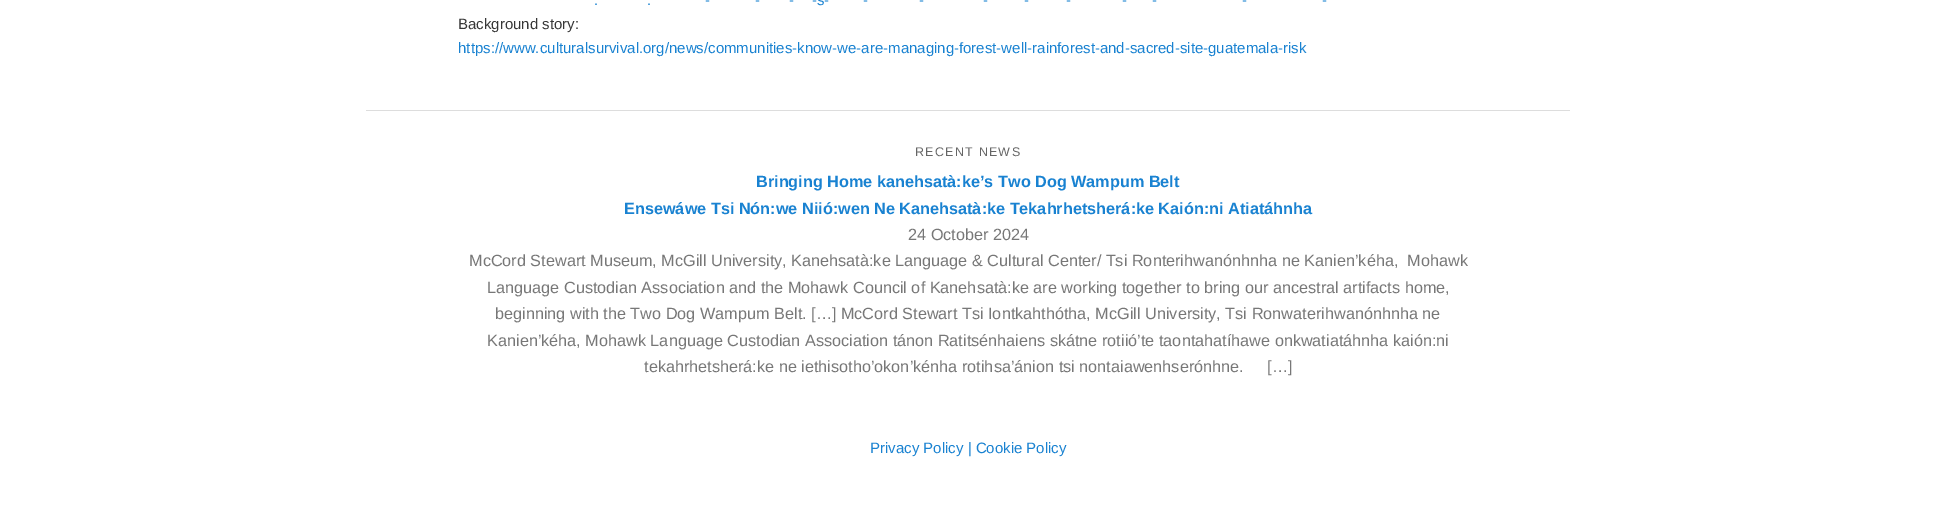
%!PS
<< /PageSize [1936 511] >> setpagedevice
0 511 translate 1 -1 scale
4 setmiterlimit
1 setgray
0 0 1936 511 rectfill
/LiberationSans-Regular [15 0 0 -15 0 0] selectfont
0.098 0.51 0.82 setrgbcolor
705 5 moveto (-) show
755 5 moveto (-) show
789 5 moveto (-) show
812 5 moveto (-s-) show
863 5 moveto (-) show
919 5 moveto (-) show
983 5 moveto (-) show
1024 5 moveto (-) show
1066 5 moveto (-) show
1122 5 moveto (-) show
1152 5 moveto (-) show
1242 5 moveto (-) show
1322 5 moveto (-) show
594 5 moveto (.) show
647 5 moveto (.) show
0.216 setgray
458 29 moveto (Background story:) show
0.098 0.51 0.82 setrgbcolor
458 53 moveto (https://www.culturalsurvival.org/news/communities-know-we-are-managing-forest-well-rainforest-and-sacred-site-guatemala-risk) show
0.867 setgray
366 110 1204 1 rectfill
/LiberationSans-Regular [12.5 0 0 -12.5 0 0] selectfont
0.4 setgray
915 156 moveto 1.25 0 (RECENT NEWS) ashow
/LiberationSans-Bold [16.25 0 0 -16.25 0 0] selectfont
0.098 0.51 0.82 setrgbcolor
756 187 moveto (Bringing Home kanehsatà:ke’s Two Dog Wampum Belt) show
624 214 moveto (Ensewáwe Tsi Nón:we Niió:wen Ne Kanehsatà:ke Tekahrhetsherá:ke Kaión:ni Atiatáhnha) show
/LiberationSans-Regular [16.25 0 0 -16.25 0 0] selectfont
0.467 setgray
908 240 moveto (24 October 2024) show
469 266 moveto (McCord Stewart Museum, McGill University, Kanehsatà:ke Language & Cultural Center/ Tsi Ronterihwanónhnha ne Kanien’kéha,  Mohawk) show
487 293 moveto (Language Custodian Association and the Mohawk Council of Kanehsatà:ke are working together to bring our ancestral artifacts home,) show
495 319 moveto (beginning with the Two Dog Wampum Belt. […] McCord Stewart Tsi Iontkahthótha, McGill University, Tsi Ronwaterihwanónhnha ne) show
487 346 moveto (Kanien’kéha, Mohawk Language Custodian Association tánon Ratitsénhaiens skátne rotiió’te taontahatíhawe onkwatiatáhnha kaión:ni) show
644 372 moveto (tekahrhetsherá:ke ne iethisotho’okon’kénha rotihsa’ánion tsi nontaiawenhserónhne.) show
1267 372 moveto ([…]) show
/LiberationSans-Regular [15 0 0 -15 0 0] selectfont
0.098 0.51 0.82 setrgbcolor
870 453 moveto (Privacy Policy | Cookie Policy) show
showpage
